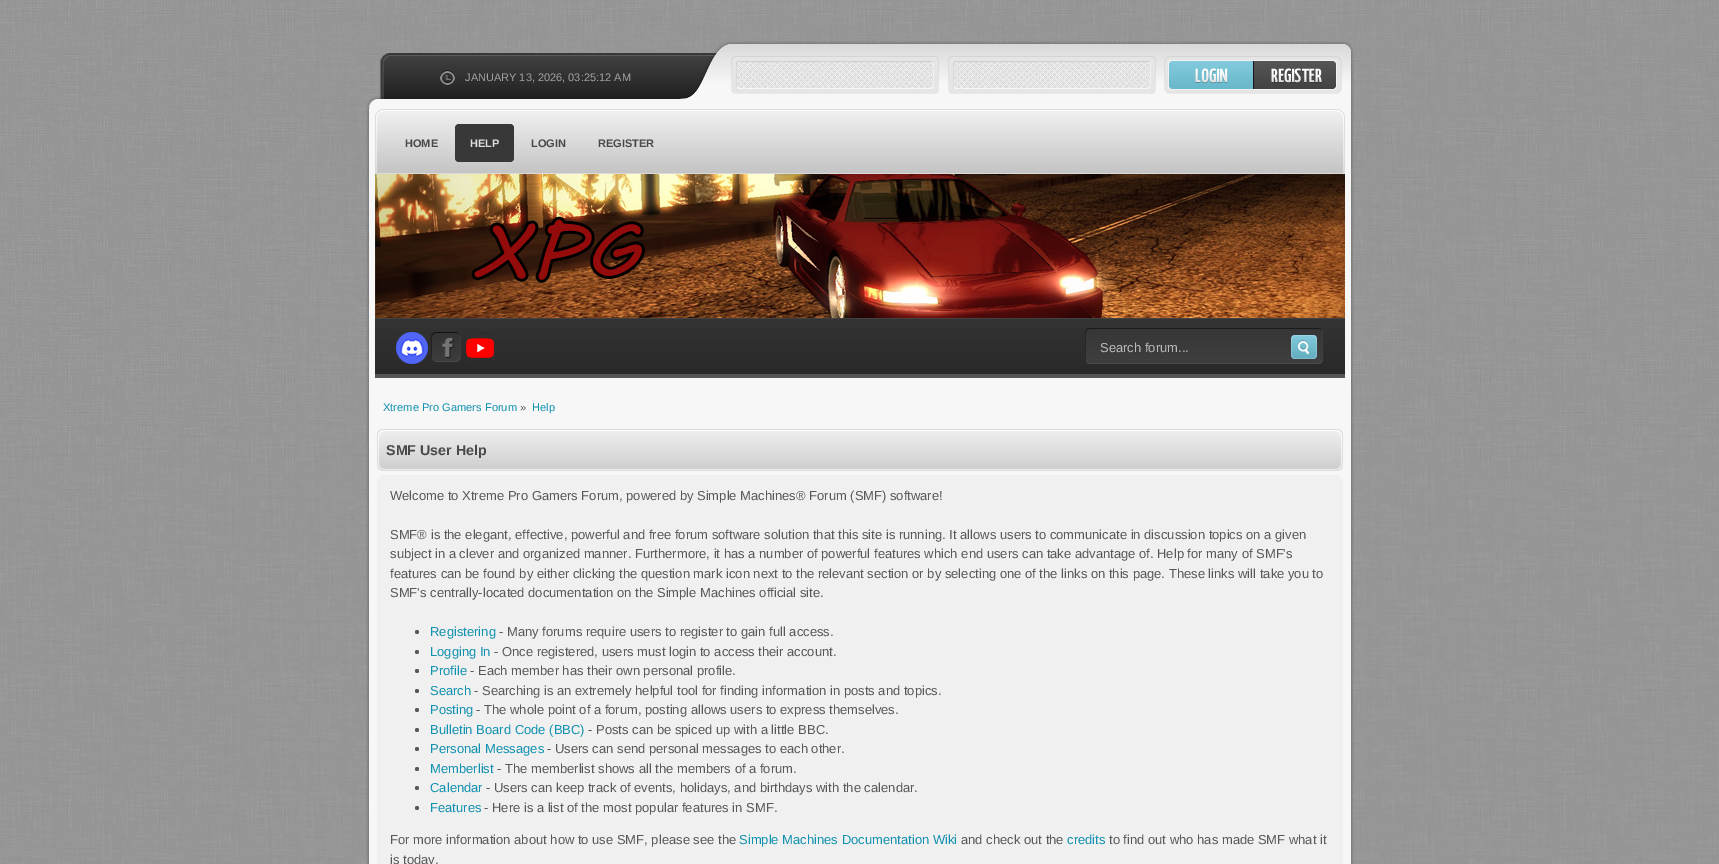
%!PS
<< /PageSize [1719 864] >> setpagedevice
/roundrect { 5 dict begin { /r /h /w /y /x } { exch def } forall
  x r add y moveto x w add y 2 copy h add r arct x w add y h add x 1 index r arct
  x y h add x y r arct x y 2 copy exch w add exch r arct closepath end } def
/picture { 5 dict begin { /h /w /y /x /name } { exch def } forall
  gsave x y translate w h scale
  w h 8 [w 0 0 h 0 0] name (r) file false 3 colorimage grestore end } def
0 864 translate 1 -1 scale
4 setmiterlimit
1 setgray
0 0 1719 864 rectfill
(img1.rgb) 0 0 1719 864 picture
(img2.rgb) 395 53 285 56 picture
(img3.rgb) 366 53 29 56 picture
(img4.rgb) 680 41 674 68 picture
(img5.rgb) 440 70 15 15 picture
/LiberationSans-Regular [11 0 0 -11 0 0] selectfont
0.639 setgray
465 81 moveto (JANUARY 13, 2026, 03:25:12 AM) show
(img6.rgb) 731 56 208 38 picture
(img6.rgb) 948 56 208 38 picture
(img7.rgb) 1164 56 89 38 picture
(img8.rgb) 1253 56 89 38 picture
(img9.rgb) 366 109 9 755 picture
(img10.rgb) 1345 109 9 755 picture
0.969 setgray
375 109 970 755 rectfill
(img11.rgb) 375 109 16 65 picture
(img12.rgb) 1330 109 15 65 picture
(img13.rgb) 390 109 940 65 picture
/LiberationSans-Bold [11 0 0 -11 0 0] selectfont
0.286 setgray
405 147 moveto (HOME) show
0.22 setgray
455 124 59 38 4 roundrect fill
0.867 setgray
470 147 moveto (HELP) show
0.286 setgray
531 147 moveto (LOGIN) show
598 147 moveto (REGISTER) show
(img14.rgb) 375 174 970 144 picture
(img15.rgb) 471 216 174 67 picture
(img16.rgb) 375 318 970 60 picture
(img17.rgb) 396 332 32 32 picture
(img18.rgb) 431 332 30 30 picture
(img19.rgb) 466 332 29 30 picture
(img20.rgb) 1085 328 238 36 picture
/LiberationSans-Regular [13 0 0 -13 0 0] selectfont
0.733 setgray
1100 352 moveto (Search forum...) show
(img21.rgb) 1291 335 26 24 picture
/LiberationSans-Regular [11.1 0 0 -11.1 0 0] selectfont
0.067 0.569 0.69 setrgbcolor
383 411 moveto (Xtreme Pro Gamers Forum) show
0.345 setgray
520 411 moveto (») show
0.067 0.569 0.69 setrgbcolor
532 411 moveto (Help) show
(img22.rgb) 377 429 960 42 picture
(img23.rgb) 1337 429 6 42 picture
/LiberationSans-Bold [14.25 0 0 -14.25 0 0] selectfont
0.286 setgray
386 455 moveto (SMF User Help) show
0.941 setgray
377 475 966 389 rectfill
0.965 setgray
377 475 3 3 rectfill
1340 475 3 3 rectfill
/LiberationSans-Regular [13 0 0 -13 0 0] selectfont
0.345 setgray
390 500 moveto (Welcome to Xtreme Pro Gamers Forum, powered by Simple Machines® Forum \(SMF\) software!) show
390 539 moveto (SMF® is the elegant, effective, powerful and free forum software solution that this site is running. It allows users to communicate in discussion topics on a given) show
390 558 moveto (subject in a clever and organized manner. Furthermore, it has a number of powerful features which end users can take advantage of. Help for many of SMF's) show
390 578 moveto (features can be found by either clicking the question mark icon next to the relevant section or by selecting one of the links on this page. These links will take you to) show
390 597 moveto (SMF's centrally-located documentation on the Simple Machines official site.) show
newpath 417 632 2 0 360 arc closepath fill
0.067 0.569 0.69 setrgbcolor
430 636 moveto (Registering) show
0.345 setgray
499 636 moveto (- Many forums require users to register to gain full access.) show
newpath 417 652 2 0 360 arc closepath fill
0.067 0.569 0.69 setrgbcolor
430 656 moveto (Logging In) show
0.345 setgray
494 656 moveto (- Once registered, users must login to access their account.) show
newpath 417 671 2 0 360 arc closepath fill
0.067 0.569 0.69 setrgbcolor
430 675 moveto (Profile) show
0.345 setgray
470 675 moveto (- Each member has their own personal profile.) show
newpath 417 691 2 0 360 arc closepath fill
0.067 0.569 0.69 setrgbcolor
430 695 moveto (Search) show
0.345 setgray
474 695 moveto (- Searching is an extremely helpful tool for finding information in posts and topics.) show
newpath 417 710 2 0 360 arc closepath fill
0.067 0.569 0.69 setrgbcolor
430 714 moveto (Posting) show
0.345 setgray
476 714 moveto (- The whole point of a forum, posting allows users to express themselves.) show
newpath 417 730 2 0 360 arc closepath fill
0.067 0.569 0.69 setrgbcolor
430 734 moveto (Bulletin Board Code \(BBC\)) show
0.345 setgray
588 734 moveto (- Posts can be spiced up with a little BBC.) show
newpath 417 749 2 0 360 arc closepath fill
0.067 0.569 0.69 setrgbcolor
430 753 moveto (Personal Messages) show
0.345 setgray
547 753 moveto (- Users can send personal messages to each other.) show
newpath 417 769 2 0 360 arc closepath fill
0.067 0.569 0.69 setrgbcolor
430 773 moveto (Memberlist) show
0.345 setgray
497 773 moveto (- The memberlist shows all the members of a forum.) show
newpath 417 788 2 0 360 arc closepath fill
0.067 0.569 0.69 setrgbcolor
430 792 moveto (Calendar) show
0.345 setgray
486 792 moveto (- Users can keep track of events, holidays, and birthdays with the calendar.) show
newpath 417 808 2 0 360 arc closepath fill
0.067 0.569 0.69 setrgbcolor
430 812 moveto (Features) show
0.345 setgray
484 812 moveto (- Here is a list of the most popular features in SMF.) show
390 844 moveto (For more information about how to use SMF, please see the) show
0.067 0.569 0.69 setrgbcolor
739 844 moveto (Simple Machines Documentation Wiki) show
0.345 setgray
961 844 moveto (and check out the) show
0.067 0.569 0.69 setrgbcolor
1067 844 moveto (credits) show
0.345 setgray
1109 844 moveto (to find out who has made SMF what it) show
390 864 moveto (is today.) show
showpage
